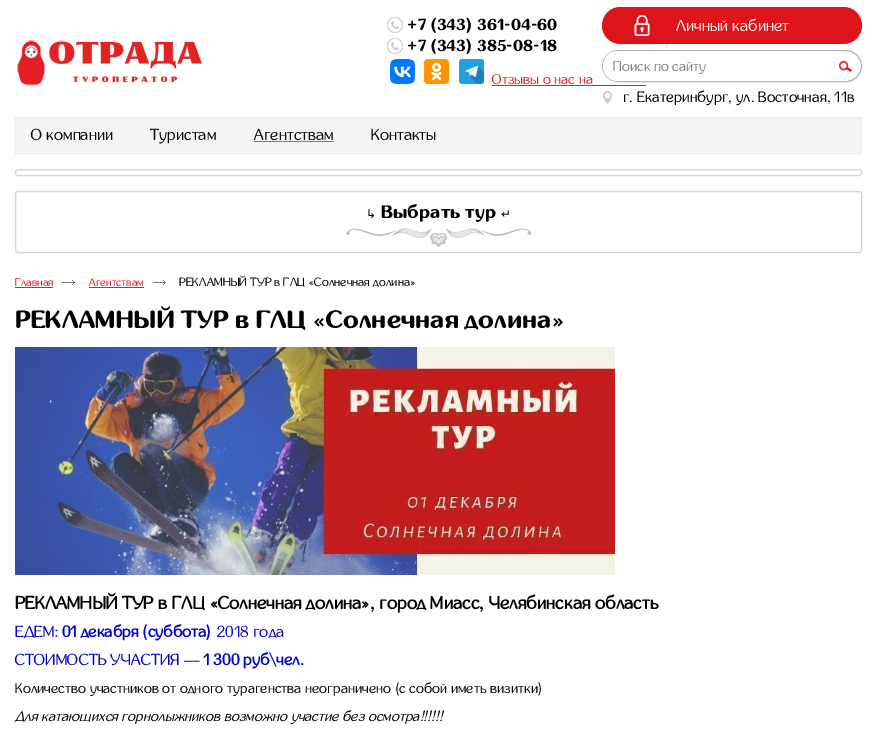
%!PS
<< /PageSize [877 743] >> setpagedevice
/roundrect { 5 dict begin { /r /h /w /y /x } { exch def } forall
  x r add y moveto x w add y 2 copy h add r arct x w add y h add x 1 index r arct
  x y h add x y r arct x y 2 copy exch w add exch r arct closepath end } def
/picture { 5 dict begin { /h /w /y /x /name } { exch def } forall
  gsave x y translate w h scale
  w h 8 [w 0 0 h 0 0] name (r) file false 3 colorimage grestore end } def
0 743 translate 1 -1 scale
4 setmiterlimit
1 setgray
0 0 877 743 rectfill
(img1.rgb) 17 40 186 46 picture
0.918 setgray
666 44 1 41 rectfill
(img2.rgb) 387 17 16 16 picture
/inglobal-Bold [16 0 0 -16 0 0] selectfont
0 setgray
407 30 moveto (+7 \(343\) 361-04-60) show
(img2.rgb) 387 38 16 16 picture
407 51 moveto (+7 \(343\) 385-08-18) show
(img3.rgb) 390 59 25 25 picture
(img4.rgb) 424 59 25 25 picture
(img5.rgb) 459 59 25 25 picture
/inglobal-Regular [14 0 0 -14 0 0] selectfont
0.89 0.118 0.145 setrgbcolor
492 84 moveto (Отзывы о нас на) show
492 85 154 1 rectfill
0.871 0.078 0.106 setrgbcolor
602 7 260 37 18.5 roundrect fill
(img6.rgb) 634 15 16 21 picture
/inglobal-Regular [16 0 0 -16 0 0] selectfont
1 setgray
676 31 moveto (Личный кабинет) show
602.5 50.5 259 31 15.5 roundrect gsave fill grestore
0.706 setgray
stroke
1 setgray
newpath 618 51 moveto 841 51 lineto 841 81 lineto 618 81 lineto 609.5 81 603 74.5 603 66 curveto 603 57.5 609.5 51 618 51 curveto closepath fill
/inglobal-Regular [14 0 0 -14 0 0] selectfont
0.502 setgray
613 71 moveto (Поиск по сайту) show
(img7.rgb) 839 61 13 11 picture
(img8.rgb) 603 91 9 13 picture
/inglobal-Regular [15 0 0 -15 0 0] selectfont
0 setgray
623 102 moveto (г. Екатеринбург, ул. Восточная, 11в) show
0.961 setgray
newpath 15.5 117.5 moveto 861.5 117.5 lineto 861.5 153.5 lineto 15.5 153.5 lineto closepath gsave fill grestore
0.933 setgray
stroke
/inglobal-Regular [16 0 0 -16 0 0] selectfont
0 setgray
31 140 moveto (О компании) show
150 140 moveto (Туристам) show
254 140 moveto (Агентствам) show
0.914 0.302 0.322 setrgbcolor
254 141 80 1 rectfill
0 setgray
371 140 moveto (Контакты) show
0.835 setgray
15.5 169.5 846 6 2.5 roundrect stroke
15.5 191.5 846 61 2.5 roundrect stroke
(img9.rgb) 346 228 186 19 picture
/DejaVuSans-Regular [12 0 0 -12 0 0] selectfont
0 setgray
366 218 moveto (↳) show
/inglobal-Bold [18 0 0 -18 0 0] selectfont
381 218 moveto (Выбрать тур) show
/DejaVuSans-Regular [12 0 0 -12 0 0] selectfont
501 218 moveto (↵) show
/inglobal-Regular [11 0 0 -11 0 0] selectfont
0.89 0.118 0.145 setrgbcolor
15 286 moveto (Главная) show
15 287 38 1 rectfill
(img10.rgb) 62 280 13 5 picture
89 286 moveto (Агентствам) show
89 287 55 1 rectfill
(img10.rgb) 153 280 13 5 picture
/inglobal-Regular [12 0 0 -12 0 0] selectfont
0 setgray
179 286 moveto (РЕКЛАМНЫЙ ТУР в ГЛЦ «Солнечная долина») show
/inglobal-Bold [25 0 0 -25 0 0] selectfont
15 328 moveto (РЕКЛАМНЫЙ ТУР в ГЛЦ «Солнечная долина») show
(img11.rgb) 15 347 600 228 picture
/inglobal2-Bold [18 0 0 -18 0 0] selectfont
15 609 moveto (РЕКЛАМНЫЙ ТУР в ГЛЦ «Солнечная долина», город Миасс, Челябинская область) show
/inglobal-Regular [16 0 0 -16 0 0] selectfont
0 0 0.804 setrgbcolor
15 637 moveto (ЕДЕМ:) show
/inglobal2-Bold [16 0 0 -16 0 0] selectfont
62 637 moveto (01 декабря \(суббота\)) show
/inglobal-Regular [16 0 0 -16 0 0] selectfont
216 637 moveto (2018 года) show
15 665 moveto (СТОИМОСТЬ УЧАСТИЯ —) show
/inglobal2-Bold [16 0 0 -16 0 0] selectfont
203 665 moveto (1 300 руб\\чел.) show
/inglobal-Regular [14 0 0 -14 0 0] selectfont
0 setgray
15 693 moveto (Количество участников от одного турагенства неограничено \(с собой иметь визитки\)) show
/inglobal-Italic [14 0 0 -14 0 0] selectfont
15 721 moveto (Для катающихся горнолыжников возможно участие без осмотра!!!!!!) show
showpage
